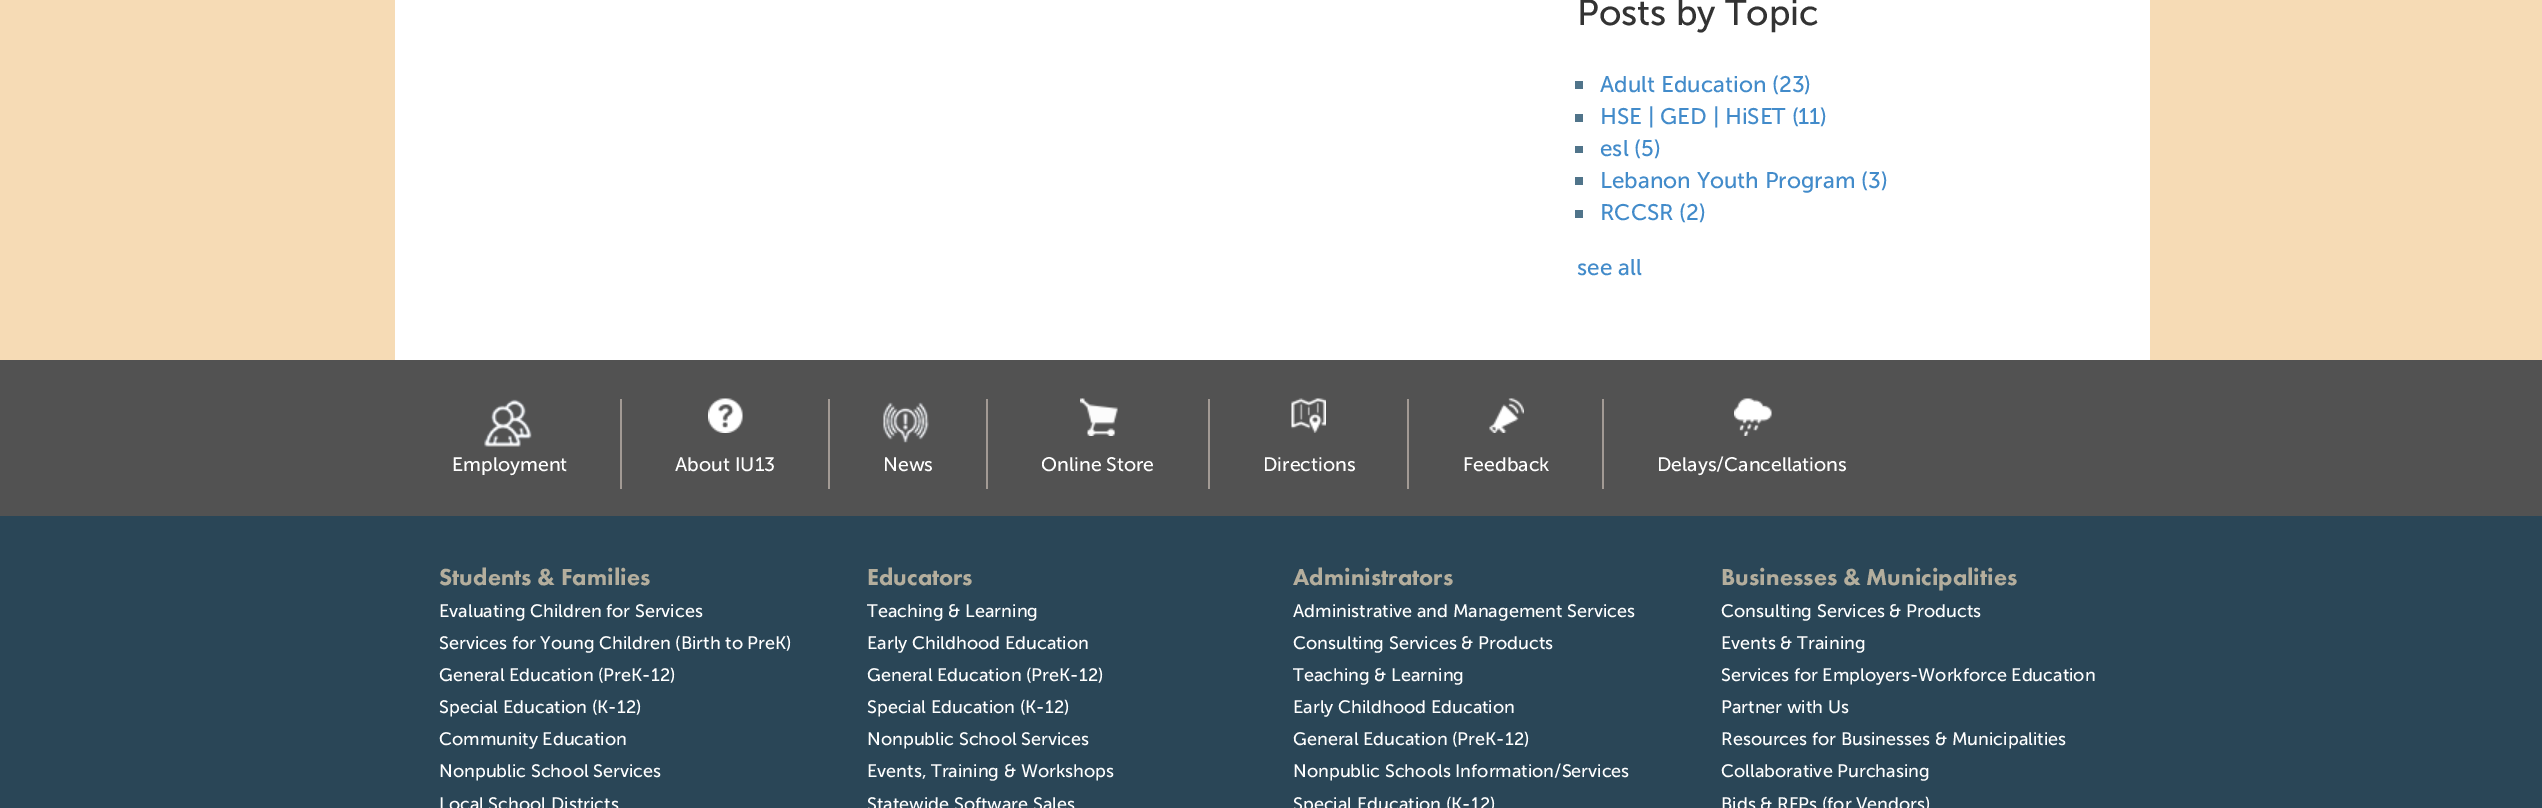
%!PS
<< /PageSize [2542 808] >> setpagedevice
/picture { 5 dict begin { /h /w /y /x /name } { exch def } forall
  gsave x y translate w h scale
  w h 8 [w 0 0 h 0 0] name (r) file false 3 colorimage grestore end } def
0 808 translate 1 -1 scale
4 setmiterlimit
0.965 0.859 0.71 setrgbcolor
0 0 2542 808 rectfill
1 setgray
395 0 1755 360 rectfill
/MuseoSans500-Regular [36 0 0 -36 0 0] selectfont
0.2 setgray
1577 25 moveto (Posts by Topic) show
0.314 0.455 0.541 setrgbcolor
1575 81 8 8 rectfill
/MuseoSans500-Regular [22.5 0 0 -22.5 0 0] selectfont
0.259 0.545 0.792 setrgbcolor
1600 92 moveto (Adult Education \(23\)) show
0.314 0.455 0.541 setrgbcolor
1575 114 8 8 rectfill
0.259 0.545 0.792 setrgbcolor
1600 124 moveto (HSE | GED | HiSET \(11\)) show
0.314 0.455 0.541 setrgbcolor
1575 146 8 7 rectfill
0.259 0.545 0.792 setrgbcolor
1600 156 moveto (esl \(5\)) show
0.314 0.455 0.541 setrgbcolor
1575 177 8 8 rectfill
0.259 0.545 0.792 setrgbcolor
1600 188 moveto (Lebanon Youth Program \(3\)) show
0.314 0.455 0.541 setrgbcolor
1575 210 8 8 rectfill
0.259 0.545 0.792 setrgbcolor
1600 220 moveto (RCCSR \(2\)) show
1577 275 moveto (see all) show
0.322 setgray
0 360 2542 156 rectfill
(img1.rgb) 484 399 48 48 picture
/MuseoSans500-Regular [19.5 0 0 -19.5 0 0] selectfont
1 setgray
452 471 moveto (Employment) show
0.635 0.604 0.58 setrgbcolor
620 399 2 90 rectfill
(img2.rgb) 708 398 35 35 picture
1 setgray
675 471 moveto (About IU13) show
0.635 0.604 0.58 setrgbcolor
828 399 2 90 rectfill
(img3.rgb) 883 402 46 41 picture
1 setgray
883 471 moveto (News) show
0.635 0.604 0.58 setrgbcolor
986 399 2 90 rectfill
(img4.rgb) 1080 398 38 38 picture
1 setgray
1041 471 moveto (Online Store) show
0.635 0.604 0.58 setrgbcolor
1208 399 2 90 rectfill
(img5.rgb) 1291 398 35 35 picture
1 setgray
1263 471 moveto (Directions) show
0.635 0.604 0.58 setrgbcolor
1407 399 2 90 rectfill
(img6.rgb) 1489 398 35 35 picture
1 setgray
1463 471 moveto (Feedback) show
0.635 0.604 0.58 setrgbcolor
1602 399 2 90 rectfill
(img7.rgb) 1734 398 38 38 picture
1 setgray
1657 471 moveto (Delays/Cancellations) show
0.165 0.275 0.341 setrgbcolor
0 516 2542 292 rectfill
/FuturaPT-Black [24 0 0 -24 0 0] selectfont
0.706 0.682 0.616 setrgbcolor
439 585 moveto (Students & Families) show
/MuseoSans500-Regular [18 0 0 -18 0 0] selectfont
1 setgray
439 617 moveto (Evaluating Children for Services) show
439 649 moveto (Services for Young Children \(Birth to PreK\)) show
439 681 moveto (General Education \(PreK-12\)) show
439 713 moveto (Special Education \(K-12\)) show
439 745 moveto (Community Education) show
439 777 moveto (Nonpublic School Services) show
439 810 moveto (Local School Districts) show
/FuturaPT-Black [24 0 0 -24 0 0] selectfont
0.706 0.682 0.616 setrgbcolor
867 585 moveto (Educators) show
/MuseoSans500-Regular [18 0 0 -18 0 0] selectfont
1 setgray
867 617 moveto (Teaching & Learning) show
867 649 moveto (Early Childhood Education) show
867 681 moveto (General Education \(PreK-12\)) show
867 713 moveto (Special Education \(K-12\)) show
867 745 moveto (Nonpublic School Services) show
867 777 moveto (Events, Training & Workshops) show
867 810 moveto (Statewide Software Sales) show
/FuturaPT-Black [24 0 0 -24 0 0] selectfont
0.706 0.682 0.616 setrgbcolor
1293 585 moveto (Administrators) show
/MuseoSans500-Regular [18 0 0 -18 0 0] selectfont
1 setgray
1293 617 moveto (Administrative and Management Services) show
1293 649 moveto (Consulting Services & Products) show
1293 681 moveto (Teaching & Learning) show
1293 713 moveto (Early Childhood Education) show
1293 745 moveto (General Education \(PreK-12\)) show
1293 777 moveto (Nonpublic Schools Information/Services) show
1293 810 moveto (Special Education \(K-12\)) show
/FuturaPT-Black [24 0 0 -24 0 0] selectfont
0.706 0.682 0.616 setrgbcolor
1721 585 moveto (Businesses & Municipalities) show
/MuseoSans500-Regular [18 0 0 -18 0 0] selectfont
1 setgray
1721 617 moveto (Consulting Services & Products) show
1721 649 moveto (Events & Training) show
1721 681 moveto (Services for Employers-Workforce Education) show
1721 713 moveto (Partner with Us) show
1721 745 moveto (Resources for Businesses & Municipalities) show
1721 777 moveto (Collaborative Purchasing) show
1721 810 moveto (Bids & RFPs \(for Vendors\)) show
showpage
